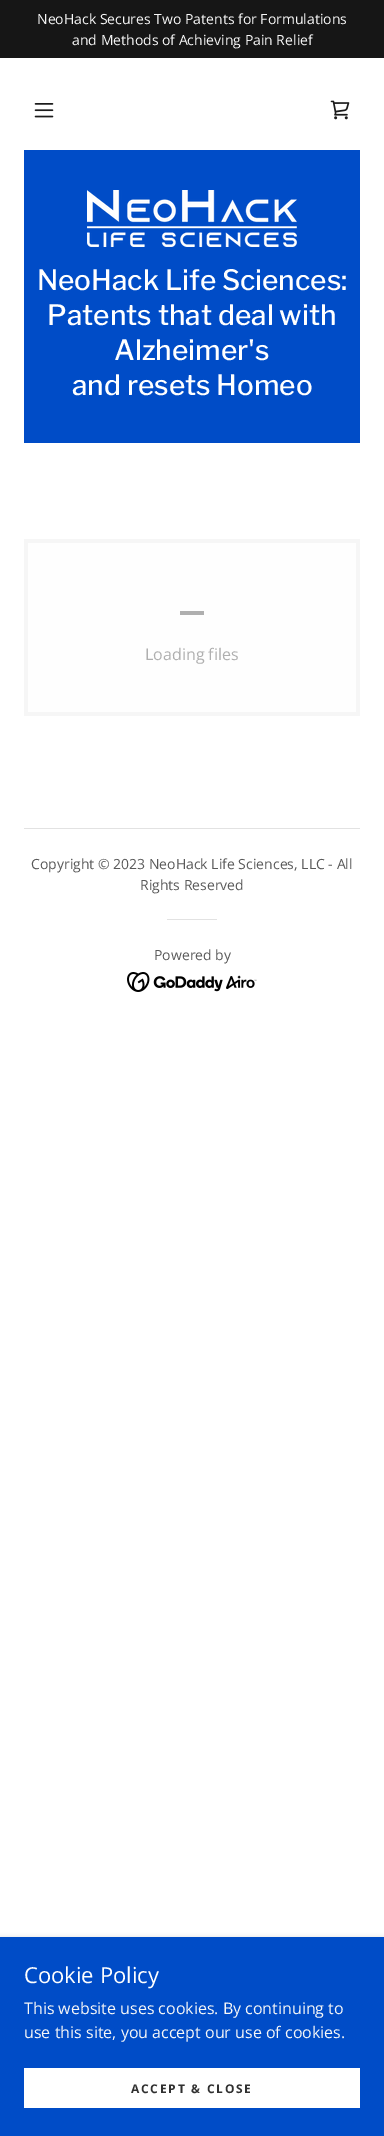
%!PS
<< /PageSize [384 2136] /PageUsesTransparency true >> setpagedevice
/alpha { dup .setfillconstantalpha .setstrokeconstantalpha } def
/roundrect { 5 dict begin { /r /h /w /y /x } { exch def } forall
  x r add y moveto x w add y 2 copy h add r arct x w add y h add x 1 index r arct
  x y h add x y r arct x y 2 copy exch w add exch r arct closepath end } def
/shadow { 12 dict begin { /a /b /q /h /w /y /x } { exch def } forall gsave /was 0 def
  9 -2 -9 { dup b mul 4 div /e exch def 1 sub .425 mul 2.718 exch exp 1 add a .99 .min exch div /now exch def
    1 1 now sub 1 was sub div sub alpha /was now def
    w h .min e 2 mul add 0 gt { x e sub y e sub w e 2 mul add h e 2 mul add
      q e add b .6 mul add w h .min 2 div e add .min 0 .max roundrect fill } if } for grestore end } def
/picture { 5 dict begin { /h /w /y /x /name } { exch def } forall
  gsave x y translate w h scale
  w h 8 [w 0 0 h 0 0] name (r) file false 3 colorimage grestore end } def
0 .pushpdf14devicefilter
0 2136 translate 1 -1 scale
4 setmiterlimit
1 setgray
0 0 384 2136 rectfill
0.086 setgray
0 0 384 58 rectfill
/OpenSans-Regular [14 0 0 -14 0 0] selectfont
0.969 setgray
37 24 moveto (NeoHack Secures Two Patents for Formulations) show
72 45 moveto (and Methods of Achieving Pain Relief) show
(img1.rgb) 34 103 20 15 picture
(img2.rgb) 330 100 20 20 picture
0 0.298 0.78 setrgbcolor
24 150 336 293 rectfill
(img3.rgb) 87 190 210 57 picture
/LibreFranklin-Thin [28 0 0 -28 0 0] selectfont
1 setgray
37 290 moveto (NeoHack Life Sciences:) show
47 325 moveto (Patents that deal with) show
114 360 moveto (Alzheimer's) show
72 395 moveto (and resets Homeo) show
0.965 setgray
24 539 336 177 rectfill
0.996 setgray
28 543 328 169 rectfill
0.686 setgray
180 611 24 4 rectfill
/OpenSans-Regular [16 0 0 -16 0 0] selectfont
145 660 moveto (Loading files) show
0.886 setgray
24 828 336 1 rectfill
/OpenSans-Regular [14 0 0 -14 0 0] selectfont
0.349 setgray
31 869 moveto (Copyright © 2023 NeoHack Life Sciences, LLC - All) show
140 890 moveto (Rights Reserved) show
0.886 setgray
167 919 50 1 rectfill
0.349 setgray
154 960 moveto (Powered by) show
(img4.rgb) 127 972 130 20 picture
0 setgray
0 1939 384 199 0 3 0.3 shadow
0 0.298 0.78 setrgbcolor
0 1937 384 199 rectfill
/OpenSans-Regular [22 0 0 -22 0 0] selectfont
1 setgray
24 1983 moveto (Cookie Policy) show
/OpenSans-Regular [16 0 0 -16 0 0] selectfont
0.969 setgray
24 2014 moveto (This website uses cookies. By continuing to) show
24 2038 moveto (use this site, you accept our use of cookies.) show
1 setgray
24 2068 336 40 rectfill
/OpenSans-Bold [12 0 0 -12 0 0] selectfont
0.188 setgray
131 2093 moveto 1.75 0 (ACCEPT & CLOSE) ashow
.poppdf14devicefilter showpage
